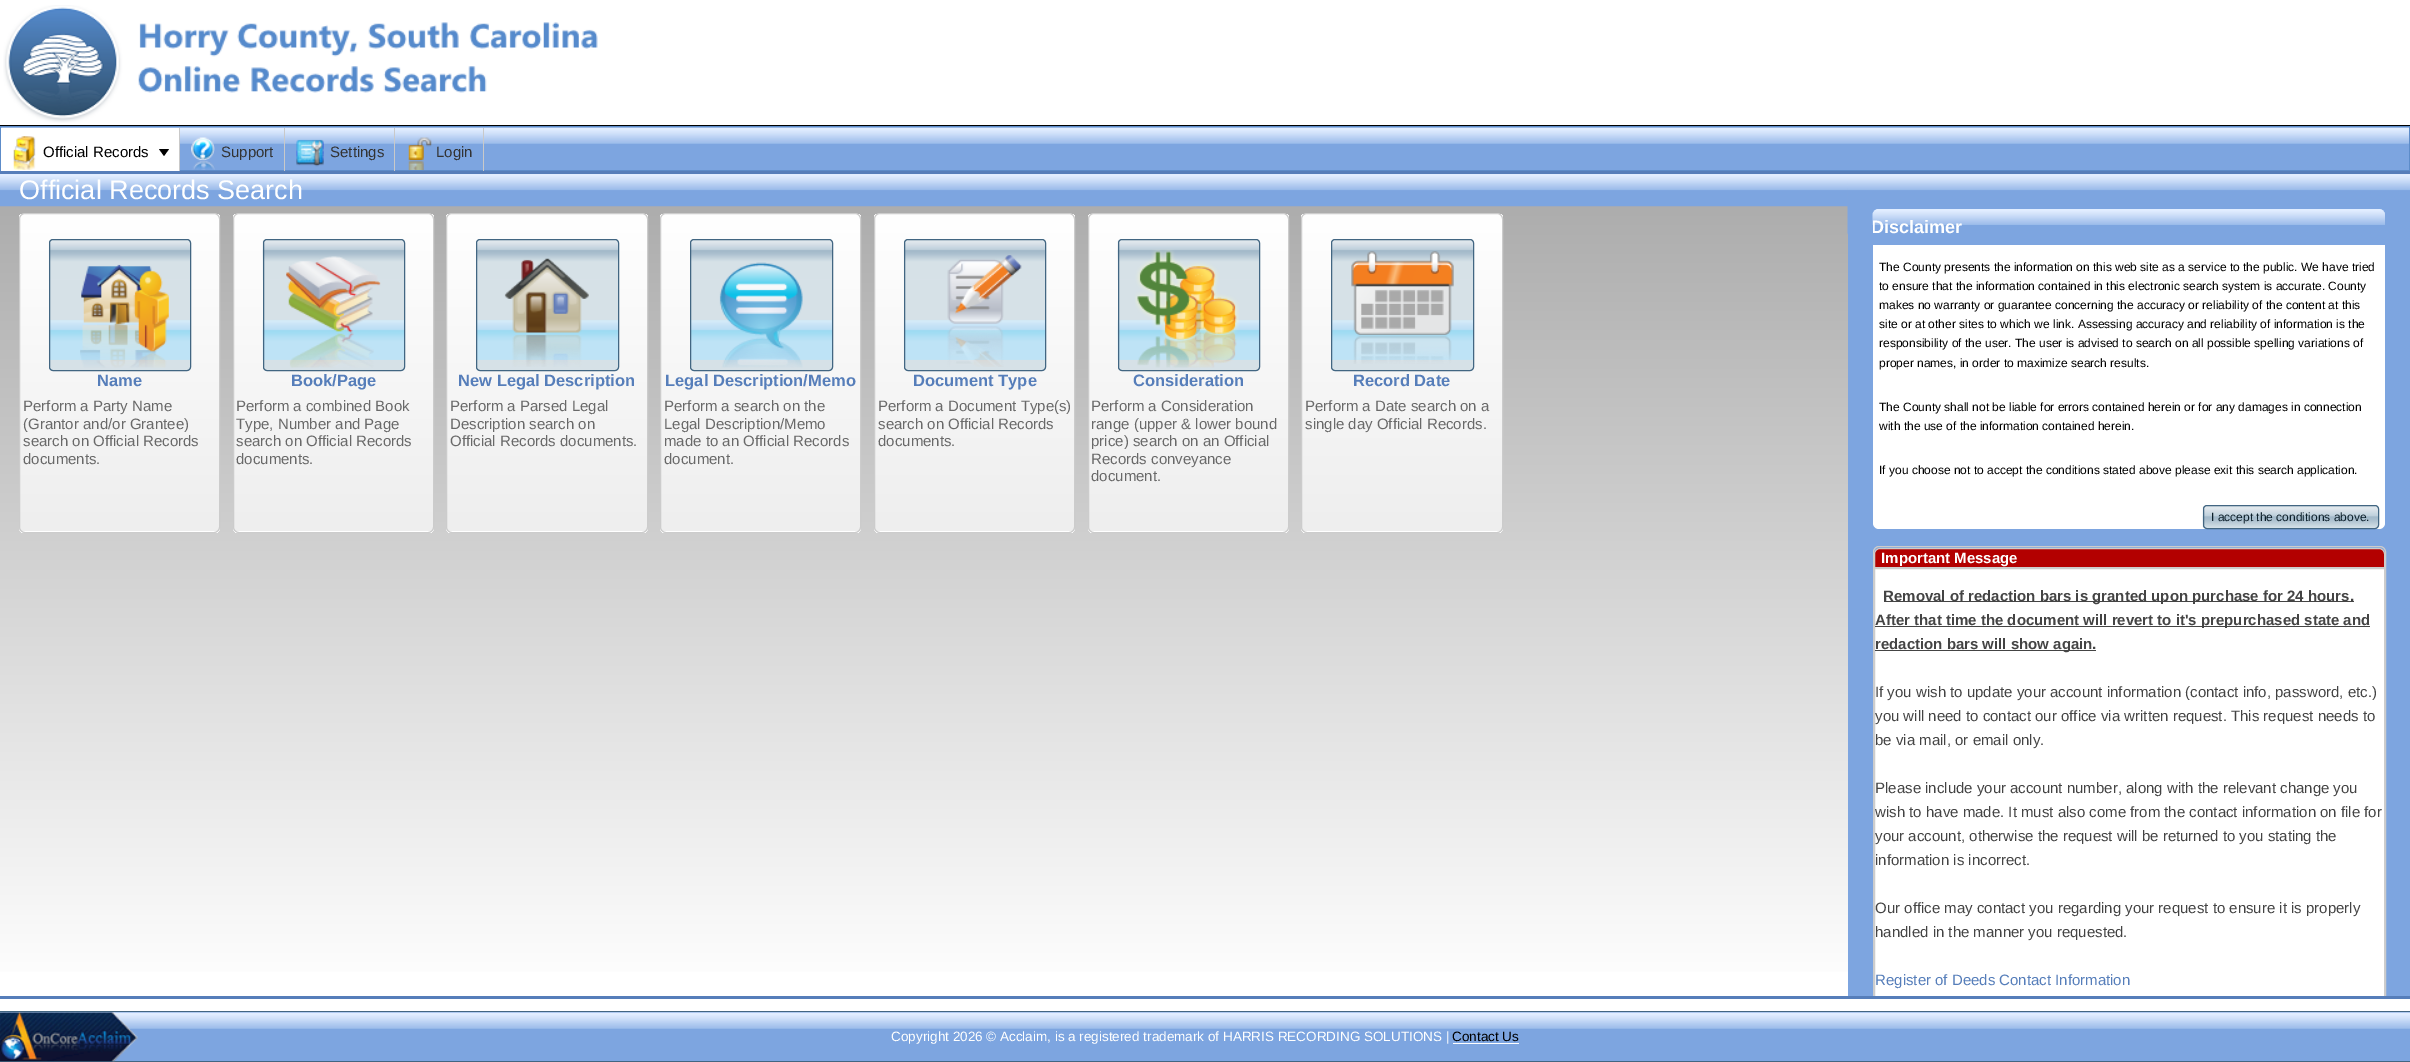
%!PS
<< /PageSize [2410 1062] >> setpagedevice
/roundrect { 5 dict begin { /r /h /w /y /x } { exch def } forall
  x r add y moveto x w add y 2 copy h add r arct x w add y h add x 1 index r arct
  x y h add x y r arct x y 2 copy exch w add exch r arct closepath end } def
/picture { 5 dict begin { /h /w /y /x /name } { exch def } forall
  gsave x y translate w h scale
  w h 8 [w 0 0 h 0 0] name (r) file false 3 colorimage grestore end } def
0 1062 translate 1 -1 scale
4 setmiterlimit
1 setgray
0 0 2410 1062 rectfill
(img1.rgb) 3 5 595 118 picture
0 setgray
0 125 2410 1 rectfill
0.49 0.647 0.878 setrgbcolor
1 127 2408 1 rectfill
(img2.rgb) 1 127 2408 43 picture
0.365 0.549 0.788 setrgbcolor
0.5 126.5 2409 44 rectstroke
1 setgray
1 128 178 43 rectfill
0.788 setgray
179 128 1 50 rectfill
(img3.rgb) 13 136 23 34 picture
/LiberationSans-Regular [15 0 0 -15 0 0] selectfont
0 setgray
43 157 moveto (Official Records) show
newpath 164 156 moveto 159 149 lineto 169 149 lineto closepath fill
0.788 setgray
284 128 1 50 rectfill
(img4.rgb) 191 137 24 33 picture
0.2 setgray
221 157 moveto (Support) show
0.788 setgray
394 128 1 50 rectfill
(img5.rgb) 296 139 28 28 picture
0.2 setgray
330 157 moveto (Settings) show
0.788 setgray
483 128 1 50 rectfill
(img6.rgb) 408 137 24 33 picture
0.2 setgray
436 157 moveto (Login) show
gsave newpath 0 206 moveto 1848 206 lineto 1848 972 lineto 0 972 lineto closepath clip newpath
<< /ShadingType 2 /ColorSpace /DeviceRGB /Coords [0 174 0 996] /Extend [true true] /Function << /FunctionType 2 /Domain [0 1] /C0 [0.667 0.667 0.667] /C1 [1 1 1] /N 1 >> >> shfill grestore
0.337 0.494 0.729 setrgbcolor
0 171 2410 3 rectfill
0 996 2410 3 rectfill
(img7.rgb) 0 174 1848 33 picture
/LiberationSans-Regular [27 0 0 -27 0 0] selectfont
1 setgray
19 199 moveto (Official Records Search) show
gsave
19 213 201 320 6 roundrect clip newpath
gsave newpath 19 214 moveto 220 214 lineto 220 531 lineto 19 531 lineto closepath clip newpath
<< /ShadingType 2 /ColorSpace /DeviceRGB /Coords [20 214 20 531] /Extend [true true] /Function << /FunctionType 2 /Domain [0 1] /C0 [1 1 1] /C1 [0.933 0.933 0.933] /N 1 >> >> shfill grestore
gsave newpath 19 531 moveto 220 531 lineto 220 533 lineto 19 533 lineto closepath clip newpath
<< /ShadingType 2 /ColorSpace /DeviceRGB /Coords [20 531 20 849] /Extend [true true] /Function << /FunctionType 2 /Domain [0 1] /C0 [1 1 1] /C1 [0.933 0.933 0.933] /N 1 >> >> shfill grestore
grestore
0.8 setgray
19.5 213.5 200 319 5.5 roundrect stroke
0.839 0.882 0.906 setrgbcolor
49 239 142 132 4 roundrect fill
(img8.rgb) 48 240 144 120 picture
0.259 0.4 0.51 setrgbcolor
49.5 239.5 141 131 3.5 roundrect stroke
(img9.rgb) 80 264 89 104 picture
/LiberationSans-Bold [16.5 0 0 -16.5 0 0] selectfont
0.337 0.494 0.729 setrgbcolor
97 386 moveto (Name) show
/LiberationSans-Regular [15 0 0 -15 0 0] selectfont
0.412 setgray
23 411 moveto (Perform a Party Name) show
23 429 moveto (\(Grantor and/or Grantee\)) show
23 446 moveto (search on Official Records) show
23 464 moveto (documents.) show
gsave
233 213 201 320 6 roundrect clip newpath
gsave newpath 233 214 moveto 434 214 lineto 434 531 lineto 233 531 lineto closepath clip newpath
<< /ShadingType 2 /ColorSpace /DeviceRGB /Coords [234 214 234 531] /Extend [true true] /Function << /FunctionType 2 /Domain [0 1] /C0 [1 1 1] /C1 [0.933 0.933 0.933] /N 1 >> >> shfill grestore
gsave newpath 233 531 moveto 434 531 lineto 434 533 lineto 233 533 lineto closepath clip newpath
<< /ShadingType 2 /ColorSpace /DeviceRGB /Coords [234 531 234 849] /Extend [true true] /Function << /FunctionType 2 /Domain [0 1] /C0 [1 1 1] /C1 [0.933 0.933 0.933] /N 1 >> >> shfill grestore
grestore
0.8 setgray
233.5 213.5 200 319 5.5 roundrect stroke
0.839 0.882 0.906 setrgbcolor
263 239 142 132 4 roundrect fill
(img10.rgb) 262 240 143 120 picture
0.259 0.4 0.51 setrgbcolor
263.5 239.5 141 131 3.5 roundrect stroke
(img11.rgb) 286 256 95 112 picture
/LiberationSans-Bold [16.5 0 0 -16.5 0 0] selectfont
0.337 0.494 0.729 setrgbcolor
291 386 moveto (Book/Page) show
/LiberationSans-Regular [15 0 0 -15 0 0] selectfont
0.412 setgray
236 411 moveto (Perform a combined Book) show
236 429 moveto (Type, Number and Page) show
236 446 moveto (search on Official Records) show
236 464 moveto (documents.) show
gsave
446 213 202 320 6 roundrect clip newpath
gsave newpath 446 214 moveto 648 214 lineto 648 531 lineto 446 531 lineto closepath clip newpath
<< /ShadingType 2 /ColorSpace /DeviceRGB /Coords [448 214 448 531] /Extend [true true] /Function << /FunctionType 2 /Domain [0 1] /C0 [1 1 1] /C1 [0.933 0.933 0.933] /N 1 >> >> shfill grestore
gsave newpath 446 531 moveto 648 531 lineto 648 533 lineto 446 533 lineto closepath clip newpath
<< /ShadingType 2 /ColorSpace /DeviceRGB /Coords [448 531 448 849] /Extend [true true] /Function << /FunctionType 2 /Domain [0 1] /C0 [1 1 1] /C1 [0.933 0.933 0.933] /N 1 >> >> shfill grestore
grestore
0.8 setgray
446.5 213.5 201 319 5.5 roundrect stroke
0.839 0.882 0.906 setrgbcolor
476 239 143 132 4 roundrect fill
(img12.rgb) 476 240 143 120 picture
0.259 0.4 0.51 setrgbcolor
476.5 239.5 142 131 3.5 roundrect stroke
(img13.rgb) 504 258 85 109 picture
/LiberationSans-Bold [16.5 0 0 -16.5 0 0] selectfont
0.337 0.494 0.729 setrgbcolor
458 386 moveto (New Legal Description) show
/LiberationSans-Regular [15 0 0 -15 0 0] selectfont
0.412 setgray
450 411 moveto (Perform a Parsed Legal) show
450 429 moveto (Description search on) show
450 446 moveto (Official Records documents.) show
gsave
660 213 201 320 6 roundrect clip newpath
gsave newpath 660 214 moveto 861 214 lineto 861 531 lineto 660 531 lineto closepath clip newpath
<< /ShadingType 2 /ColorSpace /DeviceRGB /Coords [661 214 661 531] /Extend [true true] /Function << /FunctionType 2 /Domain [0 1] /C0 [1 1 1] /C1 [0.933 0.933 0.933] /N 1 >> >> shfill grestore
gsave newpath 660 531 moveto 861 531 lineto 861 533 lineto 660 533 lineto closepath clip newpath
<< /ShadingType 2 /ColorSpace /DeviceRGB /Coords [661 531 661 849] /Extend [true true] /Function << /FunctionType 2 /Domain [0 1] /C0 [1 1 1] /C1 [0.933 0.933 0.933] /N 1 >> >> shfill grestore
grestore
0.8 setgray
660.5 213.5 200 319 5.5 roundrect stroke
0.839 0.882 0.906 setrgbcolor
690 239 143 132 4 roundrect fill
(img14.rgb) 690 240 143 120 picture
0.259 0.4 0.51 setrgbcolor
690.5 239.5 142 131 3.5 roundrect stroke
(img15.rgb) 719 262 84 106 picture
/LiberationSans-Bold [16.5 0 0 -16.5 0 0] selectfont
0.337 0.494 0.729 setrgbcolor
665 386 moveto (Legal Description/Memo) show
/LiberationSans-Regular [15 0 0 -15 0 0] selectfont
0.412 setgray
664 411 moveto (Perform a search on the) show
664 429 moveto (Legal Description/Memo) show
664 446 moveto (made to an Official Records) show
664 464 moveto (document.) show
gsave
874 213 201 320 6 roundrect clip newpath
gsave newpath 874 214 moveto 1075 214 lineto 1075 531 lineto 874 531 lineto closepath clip newpath
<< /ShadingType 2 /ColorSpace /DeviceRGB /Coords [875 214 875 531] /Extend [true true] /Function << /FunctionType 2 /Domain [0 1] /C0 [1 1 1] /C1 [0.933 0.933 0.933] /N 1 >> >> shfill grestore
gsave newpath 874 531 moveto 1075 531 lineto 1075 533 lineto 874 533 lineto closepath clip newpath
<< /ShadingType 2 /ColorSpace /DeviceRGB /Coords [875 531 875 849] /Extend [true true] /Function << /FunctionType 2 /Domain [0 1] /C0 [1 1 1] /C1 [0.933 0.933 0.933] /N 1 >> >> shfill grestore
grestore
0.8 setgray
874.5 213.5 200 319 5.5 roundrect stroke
0.839 0.882 0.906 setrgbcolor
904 239 142 132 4 roundrect fill
(img16.rgb) 903 240 144 120 picture
0.259 0.4 0.51 setrgbcolor
904.5 239.5 141 131 3.5 roundrect stroke
(img17.rgb) 947 255 75 112 picture
/LiberationSans-Bold [16.5 0 0 -16.5 0 0] selectfont
0.337 0.494 0.729 setrgbcolor
913 386 moveto (Document Type) show
/LiberationSans-Regular [15 0 0 -15 0 0] selectfont
0.412 setgray
878 411 moveto (Perform a Document Type\(s\)) show
878 429 moveto (search on Official Records) show
878 446 moveto (documents.) show
gsave
1088 213 201 320 6 roundrect clip newpath
gsave newpath 1088 214 moveto 1289 214 lineto 1289 531 lineto 1088 531 lineto closepath clip newpath
<< /ShadingType 2 /ColorSpace /DeviceRGB /Coords [1089 214 1089 531] /Extend [true true] /Function << /FunctionType 2 /Domain [0 1] /C0 [1 1 1] /C1 [0.933 0.933 0.933] /N 1 >> >> shfill grestore
gsave newpath 1088 531 moveto 1289 531 lineto 1289 533 lineto 1088 533 lineto closepath clip newpath
<< /ShadingType 2 /ColorSpace /DeviceRGB /Coords [1089 531 1089 849] /Extend [true true] /Function << /FunctionType 2 /Domain [0 1] /C0 [1 1 1] /C1 [0.933 0.933 0.933] /N 1 >> >> shfill grestore
grestore
0.8 setgray
1088.5 213.5 200 319 5.5 roundrect stroke
0.839 0.882 0.906 setrgbcolor
1118 239 142 132 4 roundrect fill
(img18.rgb) 1117 240 143 120 picture
0.259 0.4 0.51 setrgbcolor
1118.5 239.5 141 131 3.5 roundrect stroke
(img19.rgb) 1135 249 104 119 picture
/LiberationSans-Bold [16.5 0 0 -16.5 0 0] selectfont
0.337 0.494 0.729 setrgbcolor
1133 386 moveto (Consideration) show
/LiberationSans-Regular [15 0 0 -15 0 0] selectfont
0.412 setgray
1091 411 moveto (Perform a Consideration) show
1091 429 moveto (range \(upper & lower bound) show
1091 446 moveto (price\) search on an Official) show
1091 464 moveto (Records conveyance) show
1091 481 moveto (document.) show
gsave
1301 213 202 320 6 roundrect clip newpath
gsave newpath 1301 214 moveto 1503 214 lineto 1503 531 lineto 1301 531 lineto closepath clip newpath
<< /ShadingType 2 /ColorSpace /DeviceRGB /Coords [1303 214 1303 531] /Extend [true true] /Function << /FunctionType 2 /Domain [0 1] /C0 [1 1 1] /C1 [0.933 0.933 0.933] /N 1 >> >> shfill grestore
gsave newpath 1301 531 moveto 1503 531 lineto 1503 533 lineto 1301 533 lineto closepath clip newpath
<< /ShadingType 2 /ColorSpace /DeviceRGB /Coords [1303 531 1303 849] /Extend [true true] /Function << /FunctionType 2 /Domain [0 1] /C0 [1 1 1] /C1 [0.933 0.933 0.933] /N 1 >> >> shfill grestore
grestore
0.8 setgray
1301.5 213.5 201 319 5.5 roundrect stroke
0.839 0.882 0.906 setrgbcolor
1331 239 143 132 4 roundrect fill
(img20.rgb) 1331 240 143 120 picture
0.259 0.4 0.51 setrgbcolor
1331.5 239.5 142 131 3.5 roundrect stroke
(img21.rgb) 1351 251 103 113 picture
/LiberationSans-Bold [16.5 0 0 -16.5 0 0] selectfont
0.337 0.494 0.729 setrgbcolor
1353 386 moveto (Record Date) show
/LiberationSans-Regular [15 0 0 -15 0 0] selectfont
0.412 setgray
1305 411 moveto (Perform a Date search on a) show
1305 429 moveto (single day Official Records.) show
0.49 0.647 0.878 setrgbcolor
1848 233 562 763 rectfill
(img22.rgb) 1847 174 563 60 picture
1 setgray
1873 209 512 320 6 roundrect fill
0.49 0.647 0.878 setrgbcolor
newpath 1879 209 moveto 2379 209 lineto 2382.5 209 2385 211.5 2385 215 curveto 2385 245 lineto 1873 245 lineto 1873 215 lineto 1873 211.5 1875.5 209 1879 209 curveto closepath fill
(img23.rgb) 1872 209 513 16 picture
gsave
1873 209 512 320 6 roundrect clip newpath
/LiberationSans-Bold [18 0 0 -18 0 0] selectfont
1 setgray
1871 233 moveto (Disclaimer) show
grestore
/LiberationSans-Regular [12 0 0 -12 0 0] selectfont
0 setgray
1879 271 moveto (The County presents the information on this web site as a service to the public. We have tried) show
1879 290 moveto (to ensure that the information contained in this electronic search system is accurate. County) show
1879 309 moveto (makes no warranty or guarantee concerning the accuracy or reliability of the content at this) show
1879 328 moveto (site or at other sites to which we link. Assessing accuracy and reliability of information is the) show
1879 347 moveto (responsibility of the user. The user is advised to search on all possible spelling variations of) show
1879 367 moveto (proper names, in order to maximize search results.) show
1879 411 moveto (The County shall not be liable for errors contained herein or for any damages in connection) show
1879 430 moveto (with the use of the information contained herein.) show
1879 474 moveto (If you choose not to accept the conditions stated above please exit this search application.) show
(img24.rgb) 2202 506 177 23 picture
0.259 0.4 0.51 setrgbcolor
2203.5 505.5 175 23 3.5 roundrect stroke
0.051 0.125 0.169 setrgbcolor
2211 521 moveto (I accept the conditions above.) show
0.49 0.647 0.878 setrgbcolor
0 1012 2410 49 rectfill
(img25.rgb) 0 1012 2410 17 picture
0.259 0.4 0.51 setrgbcolor
0 1011 2410 1 rectfill
gsave
1848 174 562 822 rectclip
0.8 setgray
1873.5 546.5 512 473 5.5 roundrect stroke
grestore
0.702 0 0 setrgbcolor
newpath 1880 548.5 moveto 2379 548.5 lineto 2382 548.5 2384.5 551 2384.5 554 curveto 2384.5 567.5 lineto 1874.5 567.5 lineto 1874.5 554 lineto 1874.5 551 1877 548.5 1880 548.5 curveto closepath gsave fill grestore
0.8 setgray
stroke
/LiberationSans-Bold [15 0 0 -15 0 0] selectfont
1 setgray
1881 563 moveto (Important Message) show
1875 569 509 427 rectfill
gsave
1848 174 562 822 rectclip
0.8 setgray
newpath 1874.5 568.5 moveto 2384.5 568.5 lineto 2384.5 1013 lineto 2384.5 1016 2382 1018.5 2379 1018.5 curveto 1880 1018.5 lineto 1877 1018.5 1874.5 1016 1874.5 1013 curveto closepath stroke
grestore
0.267 setgray
1884 601 470 1 rectfill
1883 601 moveto (Removal of redaction bars is granted upon purchase for 24 hours.) show
1875 626 495 1 rectfill
1875 625 moveto (After that time the document will revert to it's prepurchased state and) show
1875 650 221 1 rectfill
1875 649 moveto (redaction bars will show again.) show
/LiberationSans-Regular [15 0 0 -15 0 0] selectfont
1875 697 moveto (If you wish to update your account information \(contact info, password, etc.\)) show
1875 721 moveto (you will need to contact our office via written request. This request needs to) show
1875 745 moveto (be via mail, or email only.) show
1875 793 moveto (Please include your account number, along with the relevant change you) show
1875 817 moveto (wish to have made. It must also come from the contact information on file for) show
1875 841 moveto (your account, otherwise the request will be returned to you stating the) show
1875 865 moveto (information is incorrect.) show
1875 913 moveto (Our office may contact you regarding your request to ensure it is properly) show
1875 937 moveto (handled in the manner you requested.) show
0.337 0.494 0.729 setrgbcolor
1875 985 moveto (Register of Deeds Contact Information) show
0.259 0.4 0.51 setrgbcolor
0 1061 2410 1 rectfill
(img26.rgb) 0 1012 138 50 picture
/LiberationSans-Regular [13.5 0 0 -13.5 0 0] selectfont
1 setgray
891 1041 moveto (Copyright 2026 © Acclaim, is a registered trademark of HARRIS RECORDING SOLUTIONS |) show
0 setgray
1452 1041 moveto (Contact Us) show
1 setgray
1453 1043 66 1 rectfill
showpage
